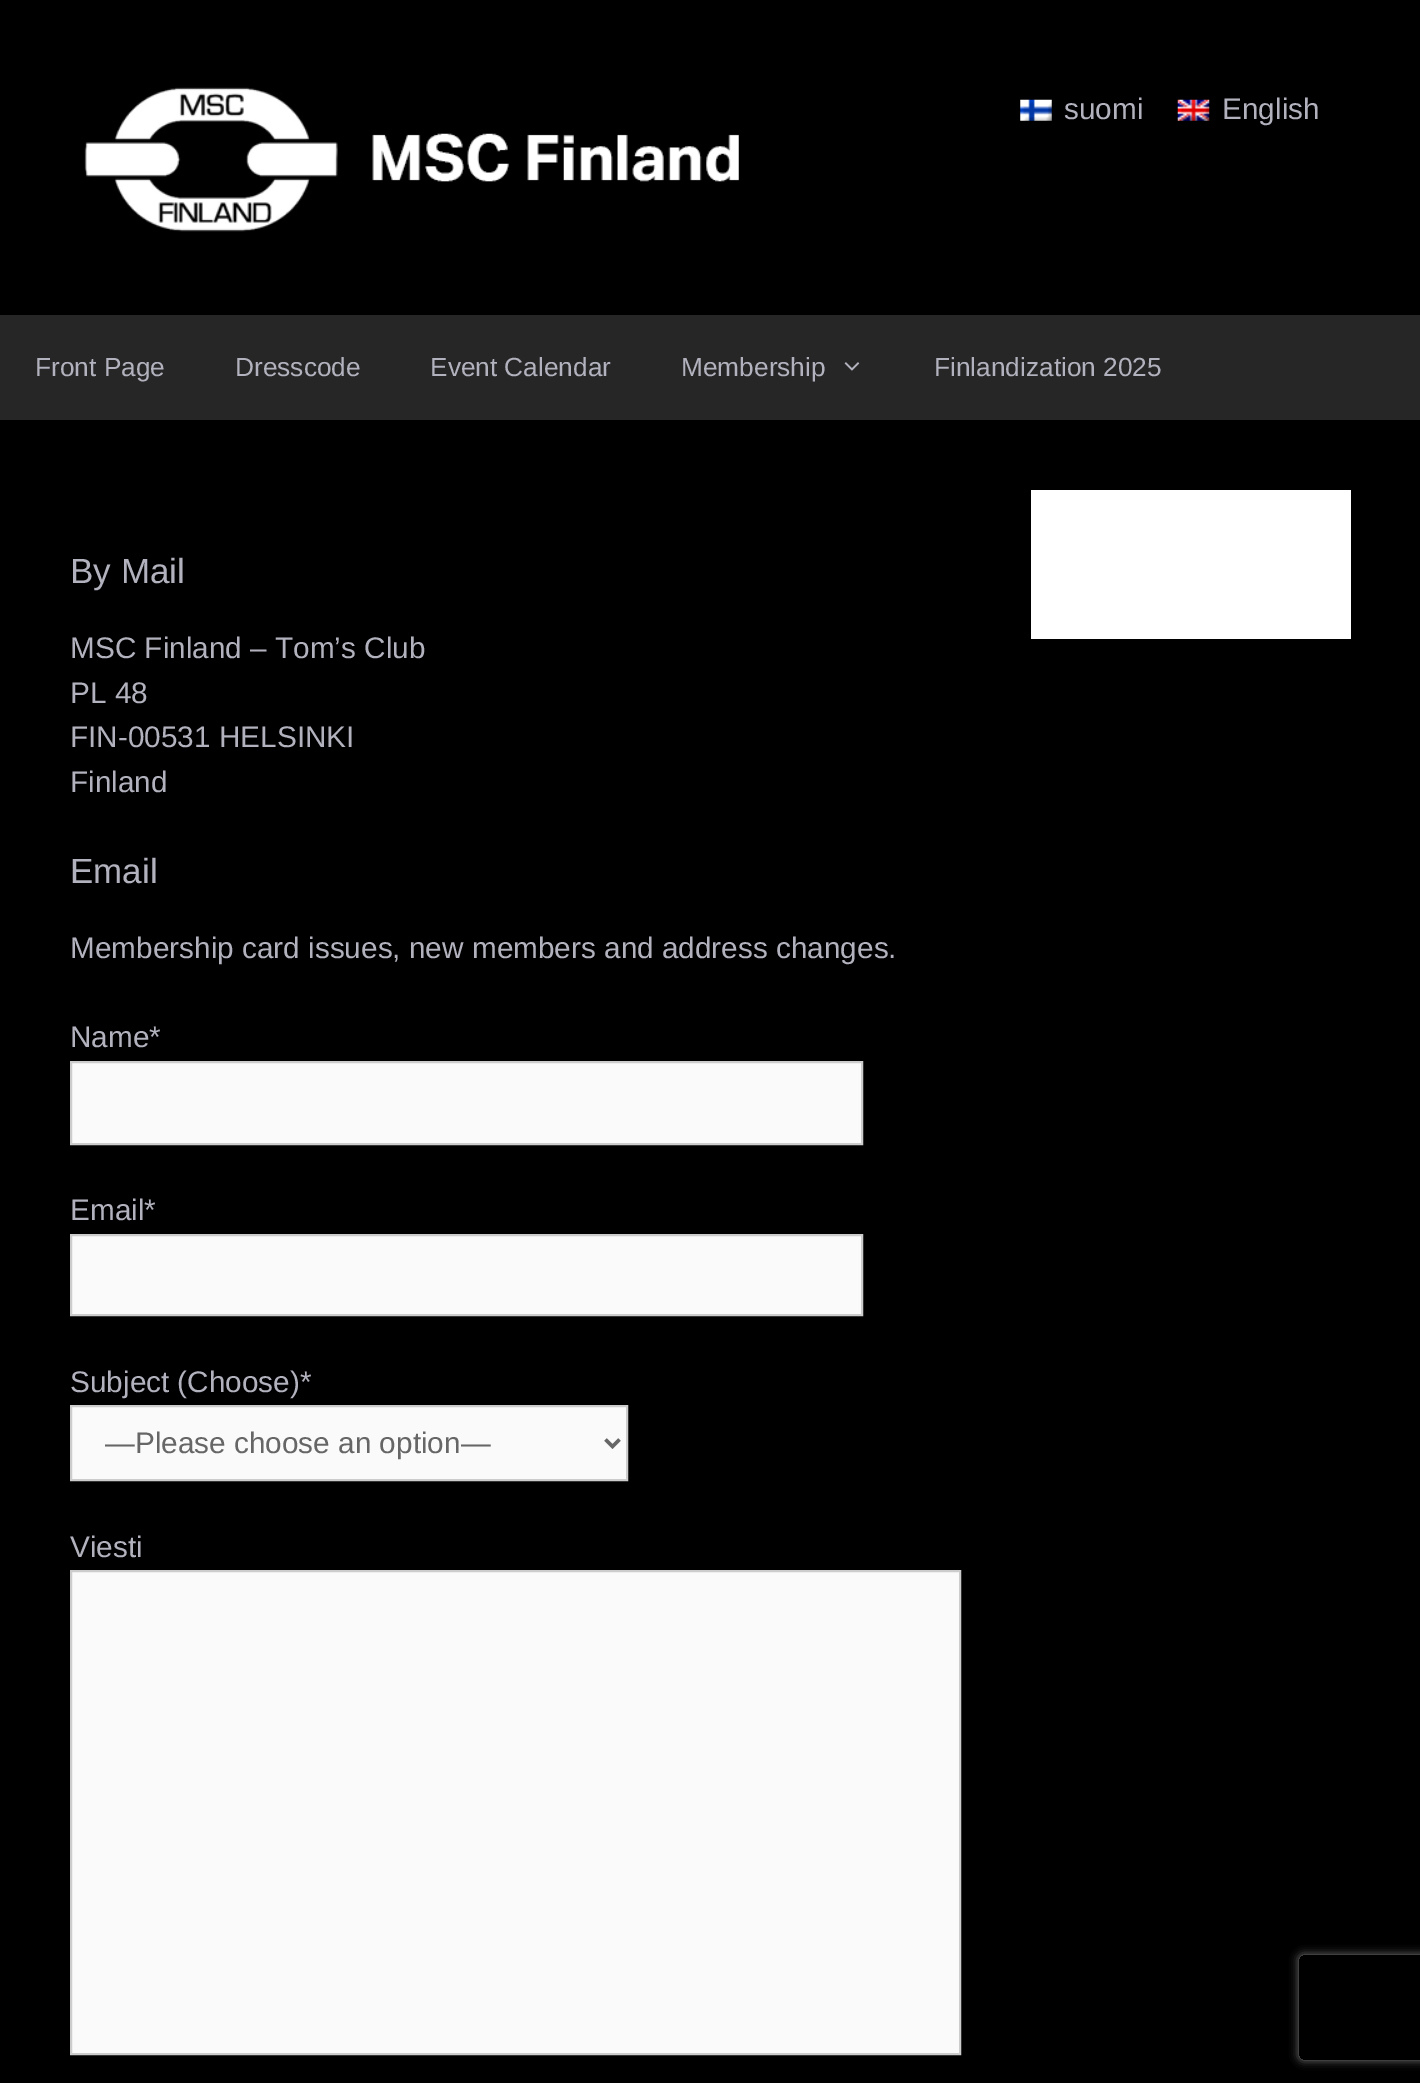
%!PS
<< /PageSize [1420 2083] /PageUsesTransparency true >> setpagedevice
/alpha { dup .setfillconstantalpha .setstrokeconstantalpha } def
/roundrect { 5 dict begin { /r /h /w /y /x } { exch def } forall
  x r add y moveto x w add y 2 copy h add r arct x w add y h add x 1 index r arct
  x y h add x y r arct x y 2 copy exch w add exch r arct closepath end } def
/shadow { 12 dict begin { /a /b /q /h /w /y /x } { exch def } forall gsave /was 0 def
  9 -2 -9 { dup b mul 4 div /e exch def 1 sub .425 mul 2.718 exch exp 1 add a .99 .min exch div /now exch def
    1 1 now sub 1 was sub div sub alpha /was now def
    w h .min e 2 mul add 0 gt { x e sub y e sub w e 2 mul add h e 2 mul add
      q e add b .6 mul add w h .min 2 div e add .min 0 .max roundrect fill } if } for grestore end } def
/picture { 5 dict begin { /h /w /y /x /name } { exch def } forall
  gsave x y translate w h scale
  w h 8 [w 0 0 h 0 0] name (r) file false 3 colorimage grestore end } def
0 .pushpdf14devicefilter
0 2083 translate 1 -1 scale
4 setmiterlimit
0 setgray
0 0 1420 2083 rectfill
(img1.rgb) 84 87 655 145 picture
(img2.rgb) 1020 99 32 22 picture
/LiberationSans-Regular [29.75 0 0 -29.75 0 0] selectfont
0.698 0.698 0.745 setrgbcolor
1064 119 moveto (suomi) show
(img3.rgb) 1177 99 33 22 picture
1222 119 moveto (English) show
0.149 setgray
0 315 1420 105 rectfill
/LiberationSans-Regular [26.25 0 0 -26.25 0 0] selectfont
0.698 0.698 0.745 setrgbcolor
35 376 moveto (Front Page) show
235 376 moveto (Dresscode) show
430 376 moveto (Event Calendar) show
681 376 moveto (Membership) show
(img4.rgb) 844 362 16 9 picture
934 376 moveto (Finlandization 2025) show
/LiberationSans-Regular [35 0 0 -35 0 0] selectfont
70 583 moveto (By Mail) show
/LiberationSans-Regular [29.75 0 0 -29.75 0 0] selectfont
70 658 moveto (MSC Finland – Tom’s Club) show
70 703 moveto (PL 48) show
70 747 moveto (FIN-00531 HELSINKI) show
70 792 moveto (Finland) show
/LiberationSans-Regular [35 0 0 -35 0 0] selectfont
70 883 moveto (Email) show
/LiberationSans-Regular [29.75 0 0 -29.75 0 0] selectfont
70 958 moveto (Membership card issues, new members and address changes.) show
70 1047 moveto (Name*) show
0.98 setgray
newpath 71 1062 moveto 862 1062 lineto 862 1144 lineto 71 1144 lineto closepath gsave fill grestore
0.8 setgray
2 setlinewidth
stroke
0.698 0.698 0.745 setrgbcolor
70 1220 moveto (Email*) show
0.98 setgray
newpath 71 1235 moveto 862 1235 lineto 862 1315 lineto 71 1315 lineto closepath gsave fill grestore
0.8 setgray
stroke
0.698 0.698 0.745 setrgbcolor
70 1392 moveto (Subject \(Choose\)*) show
0.98 setgray
newpath 71 1406 moveto 627 1406 lineto 627 1480 lineto 71 1480 lineto closepath gsave fill grestore
0.8 setgray
stroke
0.4 setgray
3.5 setlinewidth
newpath 605.5 1439.5 moveto 612.5 1446.5 lineto 619.5 1439.5 lineto stroke
105 1453 moveto (—Please choose an option—) show
0.698 0.698 0.745 setrgbcolor
70 1557 moveto (Viesti) show
0.98 setgray
newpath 71 1571 moveto 960 1571 lineto 960 2054 lineto 71 2054 lineto closepath gsave fill grestore
0.8 setgray
2 setlinewidth
stroke
1 setgray
1031 490 320 149 rectfill
gsave
newpath 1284 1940 moveto 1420 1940 lineto 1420 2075 lineto 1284 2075 lineto closepath 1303 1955 moveto 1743 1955 lineto 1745 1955 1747 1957 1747 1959 curveto 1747 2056 lineto 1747 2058 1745 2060 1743 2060 curveto 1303 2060 lineto 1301 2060 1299 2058 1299 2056 curveto 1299 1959 lineto 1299 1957 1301 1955 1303 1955 curveto closepath eoclip newpath
0.502 setgray
1299 1955 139 105 4 4.5 1 shadow
grestore
.poppdf14devicefilter showpage
